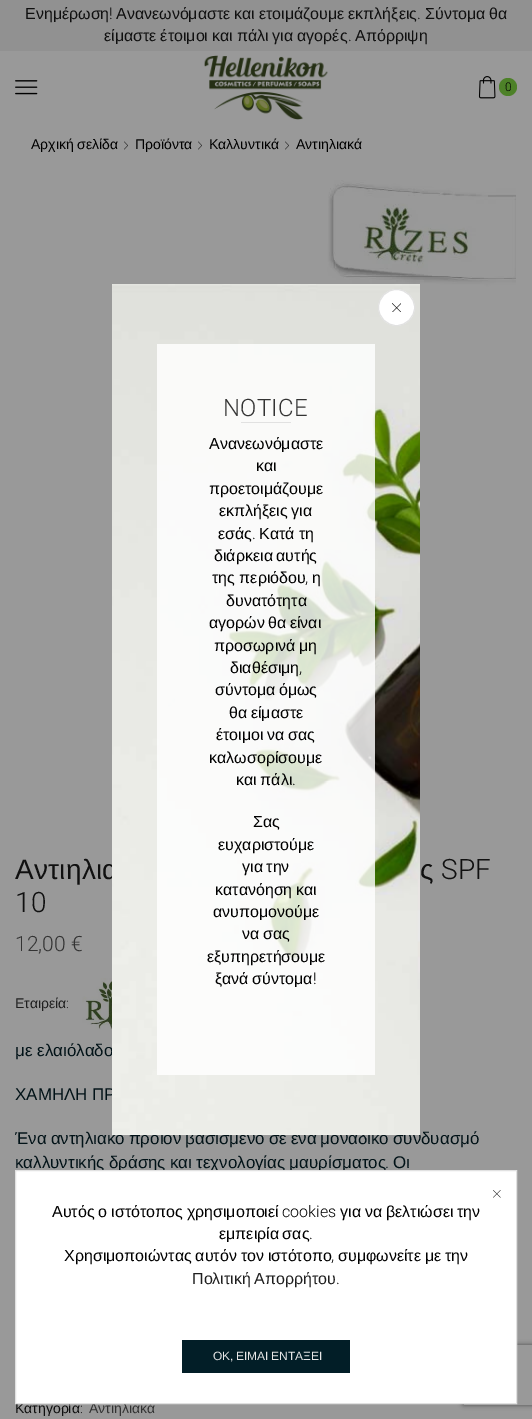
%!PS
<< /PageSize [532 1419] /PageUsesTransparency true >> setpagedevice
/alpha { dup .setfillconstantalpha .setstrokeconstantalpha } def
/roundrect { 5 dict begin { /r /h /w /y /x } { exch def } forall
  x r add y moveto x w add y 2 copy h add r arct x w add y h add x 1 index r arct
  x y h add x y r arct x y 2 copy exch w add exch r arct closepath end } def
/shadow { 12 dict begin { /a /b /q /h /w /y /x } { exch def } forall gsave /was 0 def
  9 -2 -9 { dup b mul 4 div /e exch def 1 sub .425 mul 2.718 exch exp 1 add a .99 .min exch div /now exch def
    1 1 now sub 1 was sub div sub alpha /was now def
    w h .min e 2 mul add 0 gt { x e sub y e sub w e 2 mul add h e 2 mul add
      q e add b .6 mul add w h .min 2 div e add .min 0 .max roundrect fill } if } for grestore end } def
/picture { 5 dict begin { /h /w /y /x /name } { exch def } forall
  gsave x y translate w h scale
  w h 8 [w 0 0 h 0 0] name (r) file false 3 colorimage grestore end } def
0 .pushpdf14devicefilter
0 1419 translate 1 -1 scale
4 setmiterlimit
0.6 setgray
0 0 532 1419 rectfill
0.569 setgray
0 0 532 51 rectfill
/LiberationSans-Regular [16 0 0 -16 0 0] selectfont
0.063 setgray
25 19 moveto (Ενημέρωση) show
/Roboto-Light [16 0 0 -16 0 0] selectfont
109 19 moveto (!) show
/LiberationSans-Regular [16 0 0 -16 0 0] selectfont
116 19 moveto -0.5 0 32 (Ανανεωνόμαστε και ετοιμάζουμε εκπλήξεις) widthshow
/Roboto-Light [16 0 0 -16 0 0] selectfont
417 19 moveto (.) show
/LiberationSans-Regular [16 0 0 -16 0 0] selectfont
425 19 moveto -0.5 0 32 (Σύντομα θα) widthshow
104 41 moveto -0.5 0 32 (είμαστε έτοιμοι και πάλι για αγορές) widthshow
/Roboto-Light [16 0 0 -16 0 0] selectfont
348 41 moveto (.) show
/LiberationSans-Regular [16 0 0 -16 0 0] selectfont
355 41 moveto (Απόρριψη) show
(img1.rgb) 15 80 23 15 picture
(img2.rgb) 204 55 124 65 picture
(img3.rgb) 478 76 18 23 picture
0.302 0.506 0.157 setrgbcolor
newpath 508 87 9 0 360 arc closepath fill
/Roboto-Light [12 0 0 -12 0 0] selectfont
0 setgray
505 91 moveto (0) show
/LiberationSans-Regular [14 0 0 -14 0 0] selectfont
31 149 moveto (Αρχική σελίδα) show
(img4.rgb) 124 141 4 9 picture
135 149 moveto (Προϊόντα) show
(img4.rgb) 198 141 4 9 picture
209 149 moveto (Καλλυντικά) show
(img4.rgb) 285 141 4 9 picture
296 149 moveto (Αντιηλιακά) show
(img5.rgb) 208 180 308 556 picture
/LiberationSans-Regular [28 0 0 -28 0 0] selectfont
0.063 setgray
15 879 moveto -1 0 32 0.25 0 (Αντιηλια) awidthshow
420 879 moveto -1 0 32 0.25 0 (ς) awidthshow
/Roboto-Light [28 0 0 -28 0 0] selectfont
441 879 moveto 0.25 0 (SPF) ashow
15 912 moveto 0.25 0 (10) ashow
/Roboto-Light [21 0 0 -21 0 0] selectfont
0.2 setgray
15 951 moveto (12,00 €) show
/LiberationSans-Regular [14 0 0 -14 0 0] selectfont
0.122 setgray
15 1008 moveto (Εταιρεία) show
/Roboto-Light [14 0 0 -14 0 0] selectfont
66 1008 moveto (:) show
(img6.rgb) 82 978 30 52 picture
/LiberationSans-Regular [16.95 0 0 -16.95 0 0] selectfont
0.004 0.071 0.09 setrgbcolor
15 1056 moveto (με ελαιόλαδο) show
15 1100 moveto -0.5 0 32 (ΧΑΜΗΛΗ ΠΡ) widthshow
15 1144 moveto -0.75 0 32 (Ένα αντηλιακό προϊόν βασισμένο σε ένα μοναδικό συνδυασμό) widthshow
15 1168 moveto -0.5 0 32 (καλλυντικής δράσης και τεχνολογίας μαυρίσματος) widthshow
/Roboto-Light [16.95 0 0 -16.95 0 0] selectfont
385 1168 moveto (.) show
/LiberationSans-Regular [16.95 0 0 -16.95 0 0] selectfont
393 1168 moveto (Οι) show
/LiberationSans-Regular [14 0 0 -14 0 0] selectfont
0.063 setgray
15 1413 moveto (Κατηγορία) show
/Roboto-Light [14 0 0 -14 0 0] selectfont
80 1413 moveto (:) show
/LiberationSans-Regular [14 0 0 -14 0 0] selectfont
0.2 setgray
89 1413 moveto (Αντιηλιακά) show
gsave
newpath 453 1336 moveto 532 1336 lineto 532 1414 lineto 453 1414 lineto closepath 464 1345 moveto 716 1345 lineto 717 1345 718 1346 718 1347 curveto 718 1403 lineto 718 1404 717 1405 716 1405 curveto 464 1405 lineto 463 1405 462 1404 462 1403 curveto 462 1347 lineto 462 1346 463 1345 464 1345 curveto closepath eoclip newpath
0.302 setgray
462 1345 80 60 2 2.5 1 shadow
grestore
1 setgray
newpath 15.5 1170.5 moveto 516.5 1170.5 lineto 516.5 1403.5 lineto 15.5 1403.5 lineto closepath gsave fill grestore
0.882 setgray
stroke
(img7.rgb) 493 1190 8 8 picture
/LiberationSans-Regular [16 0 0 -16 0 0] selectfont
0 setgray
52 1217 moveto -0.5 0 32 (Αυτός ο ιστότοπος χρησιμοποιεί) widthshow
/Roboto-Light [16 0 0 -16 0 0] selectfont
282 1217 moveto (cookies) show
/LiberationSans-Regular [16 0 0 -16 0 0] selectfont
340 1217 moveto -0.5 0 32 (για να βελτιώσει την) widthshow
219 1239 moveto -1 0 32 (εμπειρία σας) widthshow
/Roboto-Light [16 0 0 -16 0 0] selectfont
309 1239 moveto (.) show
/LiberationSans-Regular [16 0 0 -16 0 0] selectfont
64 1261 moveto -0.5 0 32 (Χρησιμοποιώντας αυτόν τον ιστότοπο) widthshow
/Roboto-Light [16 0 0 -16 0 0] selectfont
331 1261 moveto (,) show
/LiberationSans-Regular [16 0 0 -16 0 0] selectfont
338 1261 moveto -0.5 0 32 (συμφωνείτε με την) widthshow
0.122 setgray
192 1284 moveto -1 0 32 (Πολιτική Απορρήτου) widthshow
/Roboto-Light [16 0 0 -16 0 0] selectfont
0 setgray
336 1284 moveto (.) show
0.008 0.118 0.153 setrgbcolor
182 1340 168 33 rectfill
/LiberationSans-Regular [12 0 0 -12 0 0] selectfont
0.906 setgray
213 1360 moveto -1 0 32 (OK, ΕΙΜΑΙ ΕΝΤΑΞΕΙ) widthshow
(img9.rgb) 112 284 308 851 picture
1 setgray
newpath 396.5 307.5 18 0 360 arc closepath gsave fill grestore
0.882 setgray
stroke
(img8.rgb) 392 303 9 9 picture
0.82 alpha
1 setgray
157 344 218 731 rectfill
/Roboto-Light [24 0 0 -24 0 0] selectfont
1 alpha
0.2 setgray
223 416 moveto 0.25 0 (NOTICE) ashow
0.882 setgray
241 422 50 1 rectfill
/LiberationSans-Regular [16 0 0 -16 0 0] selectfont
0 setgray
209 449 moveto (Ανανεωνόμαστε) show
256 471 moveto (και) show
209 494 moveto (προετοιμάζουμε) show
219 516 moveto -1 0 32 (εκπλήξεις για) widthshow
218 539 moveto (εσάς) show
/Roboto-Light [16 0 0 -16 0 0] selectfont
252 539 moveto (.) show
/LiberationSans-Regular [16 0 0 -16 0 0] selectfont
259 539 moveto (Κατά τη) show
214 561 moveto -1 0 32 (διάρκεια αυτής) widthshow
212 583 moveto (της περιόδου) show
/Roboto-Light [16 0 0 -16 0 0] selectfont
305 583 moveto (,) show
/LiberationSans-Regular [16 0 0 -16 0 0] selectfont
312 583 moveto (η) show
226 606 moveto (δυνατότητα) show
209 628 moveto -1 0 32 (αγορών θα είναι) widthshow
214 651 moveto -1 0 32 (προσωρινά μη) widthshow
230 673 moveto (διαθέσιμη) show
/Roboto-Light [16 0 0 -16 0 0] selectfont
299 673 moveto (,) show
/LiberationSans-Regular [16 0 0 -16 0 0] selectfont
215 695 moveto -1 0 32 (σύντομα όμως) widthshow
229 718 moveto -1 0 32 (θα είμαστε) widthshow
216 740 moveto -1 0 32 (έτοιμοι να σας) widthshow
209 763 moveto (καλωσορίσουμε) show
236 785 moveto -1 0 32 (και πάλι) widthshow
/Roboto-Light [16 0 0 -16 0 0] selectfont
292 785 moveto (.) show
/LiberationSans-Regular [16 0 0 -16 0 0] selectfont
253 827 moveto (Σας) show
218 850 moveto (ευχαριστούμε) show
242 872 moveto -1 0 32 (για την) widthshow
215 895 moveto -1 0 32 (κατανόηση και) widthshow
213 917 moveto (ανυπομονούμε) show
242 939 moveto -1 0 32 (να σας) widthshow
207 962 moveto (εξυπηρετήσουμε) show
215 984 moveto -1 0 32 (ξανά σύντομα) widthshow
/Roboto-Light [16 0 0 -16 0 0] selectfont
313 984 moveto (!) show
.poppdf14devicefilter showpage
